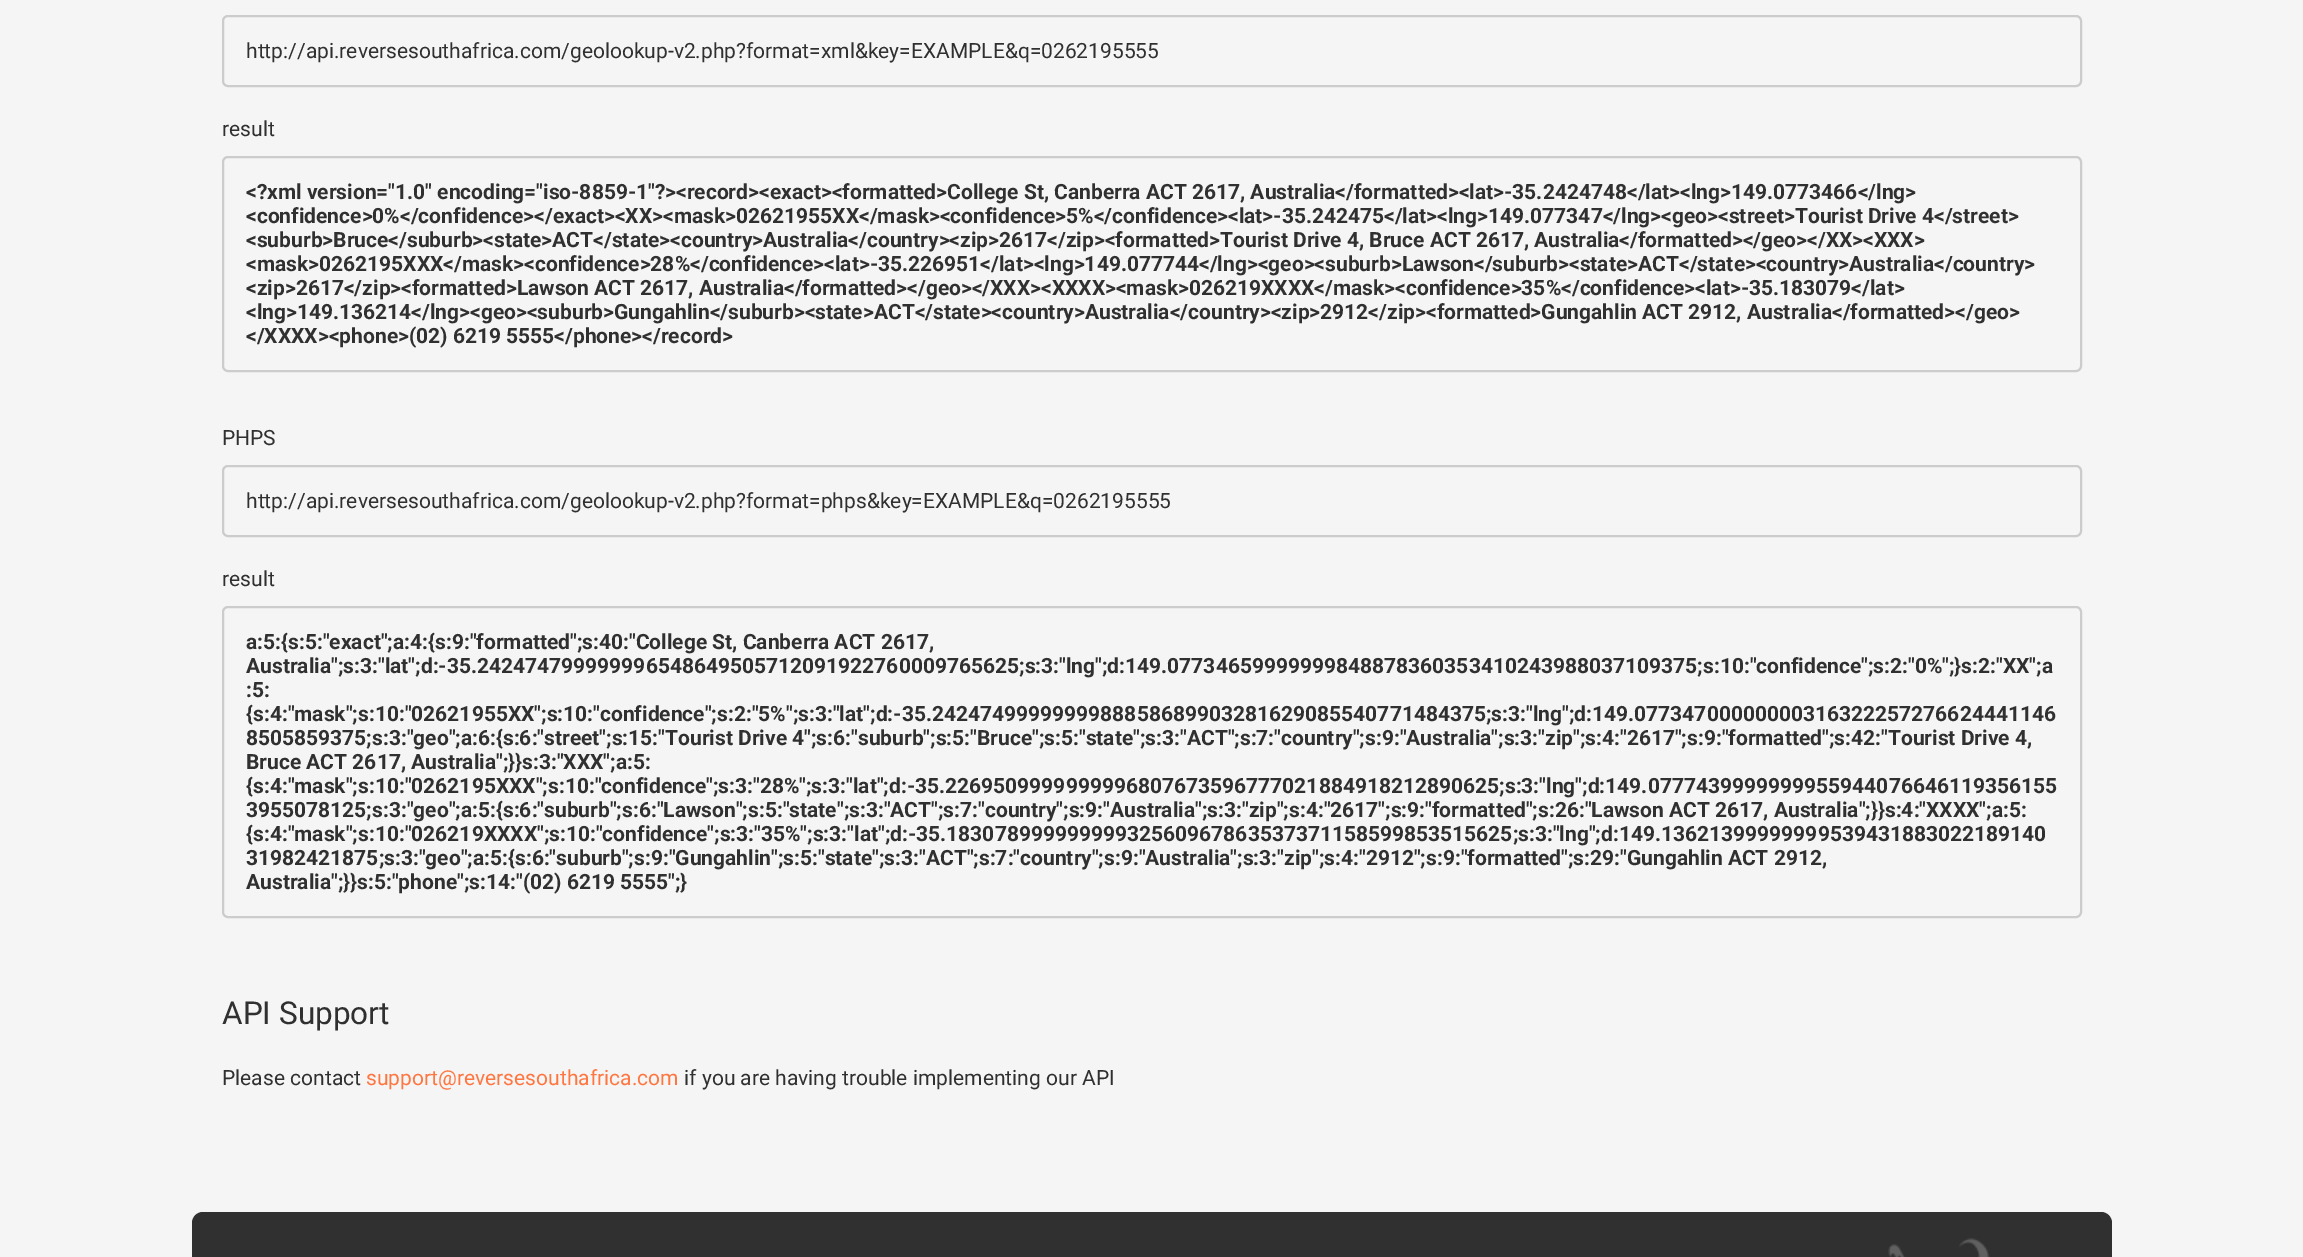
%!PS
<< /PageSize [2303 1257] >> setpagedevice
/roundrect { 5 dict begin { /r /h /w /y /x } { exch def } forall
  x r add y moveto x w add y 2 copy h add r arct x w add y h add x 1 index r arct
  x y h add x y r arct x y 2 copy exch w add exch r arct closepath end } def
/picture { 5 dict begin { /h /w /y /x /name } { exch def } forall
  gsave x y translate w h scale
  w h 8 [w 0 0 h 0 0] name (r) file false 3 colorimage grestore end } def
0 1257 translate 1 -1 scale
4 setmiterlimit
0.961 setgray
0 0 2303 1257 rectfill
0.8 setgray
2 setlinewidth
223 16 1858 70 5 roundrect stroke
/Roboto-Regular [21 0 0 -21 0 0] selectfont
0.188 setgray
246 58 moveto (http://api.reversesouthafrica.com/geolookup-v2.php?format=xml&key=EXAMPLE&q=0262195555) show
222 136 moveto (result) show
0.8 setgray
223 157 1858 214 5 roundrect stroke
/Roboto-Bold [21 0 0 -21 0 0] selectfont
0.188 setgray
246 199 moveto (<?xml version="1.0" encoding="iso-8859-1"?><record><exact><formatted>College St, Canberra ACT 2617, Australia</formatted><lat>-35.2424748</lat><lng>149.0773466</lng>) show
246 223 moveto (<confidence>0%</confidence></exact><XX><mask>02621955XX</mask><confidence>5%</confidence><lat>-35.242475</lat><lng>149.077347</lng><geo><street>Tourist Drive 4</street>) show
246 247 moveto (<suburb>Bruce</suburb><state>ACT</state><country>Australia</country><zip>2617</zip><formatted>Tourist Drive 4, Bruce ACT 2617, Australia</formatted></geo></XX><XXX>) show
246 271 moveto (<mask>0262195XXX</mask><confidence>28%</confidence><lat>-35.226951</lat><lng>149.077744</lng><geo><suburb>Lawson</suburb><state>ACT</state><country>Australia</country>) show
246 295 moveto (<zip>2617</zip><formatted>Lawson ACT 2617, Australia</formatted></geo></XXX><XXXX><mask>026219XXXX</mask><confidence>35%</confidence><lat>-35.183079</lat>) show
246 319 moveto (<lng>149.136214</lng><geo><suburb>Gungahlin</suburb><state>ACT</state><country>Australia</country><zip>2912</zip><formatted>Gungahlin ACT 2912, Australia</formatted></geo>) show
246 343 moveto (</XXXX><phone>\(02\) 6219 5555</phone></record>) show
/Roboto-Regular [21 0 0 -21 0 0] selectfont
222 445 moveto (PHPS) show
0.8 setgray
223 466 1858 70 5 roundrect stroke
0.188 setgray
246 508 moveto (http://api.reversesouthafrica.com/geolookup-v2.php?format=phps&key=EXAMPLE&q=0262195555) show
222 586 moveto (result) show
0.8 setgray
223 607 1858 310 5 roundrect stroke
/Roboto-Bold [21 0 0 -21 0 0] selectfont
0.188 setgray
246 649 moveto (a:5:{s:5:"exact";a:4:{s:9:"formatted";s:40:"College St, Canberra ACT 2617,) show
246 673 moveto (Australia";s:3:"lat";d:-35.242474799999996548649505712091922760009765625;s:3:"lng";d:149.07734659999999848878360353410243988037109375;s:10:"confidence";s:2:"0%";}s:2:"XX";a) show
246 697 moveto (:5:) show
246 721 moveto ({s:4:"mask";s:10:"02621955XX";s:10:"confidence";s:2:"5%";s:3:"lat";d:-35.2424749999999988858689903281629085540771484375;s:3:"lng";d:149.07734700000000316322257276624441146) show
246 745 moveto (8505859375;s:3:"geo";a:6:{s:6:"street";s:15:"Tourist Drive 4";s:6:"suburb";s:5:"Bruce";s:5:"state";s:3:"ACT";s:7:"country";s:9:"Australia";s:3:"zip";s:4:"2617";s:9:"formatted";s:42:"Tourist Drive 4,) show
246 769 moveto (Bruce ACT 2617, Australia";}}s:3:"XXX";a:5:) show
246 793 moveto ({s:4:"mask";s:10:"0262195XXX";s:10:"confidence";s:3:"28%";s:3:"lat";d:-35.2269509999999996807673596777021884918212890625;s:3:"lng";d:149.0777439999999955944076646119356155) show
246 817 moveto (3955078125;s:3:"geo";a:5:{s:6:"suburb";s:6:"Lawson";s:5:"state";s:3:"ACT";s:7:"country";s:9:"Australia";s:3:"zip";s:4:"2617";s:9:"formatted";s:26:"Lawson ACT 2617, Australia";}}s:4:"XXXX";a:5:) show
246 841 moveto ({s:4:"mask";s:10:"026219XXXX";s:10:"confidence";s:3:"35%";s:3:"lat";d:-35.18307899999999932560967863537371158599853515625;s:3:"lng";d:149.13621399999999539431883022189140) show
246 865 moveto (31982421875;s:3:"geo";a:5:{s:6:"suburb";s:9:"Gungahlin";s:5:"state";s:3:"ACT";s:7:"country";s:9:"Australia";s:3:"zip";s:4:"2912";s:9:"formatted";s:29:"Gungahlin ACT 2912,) show
246 889 moveto (Australia";}}s:5:"phone";s:14:"\(02\) 6219 5555";}) show
/Roboto-Regular [31.5 0 0 -31.5 0 0] selectfont
222 1024 moveto (API Support) show
/Roboto-Regular [21 0 0 -21 0 0] selectfont
222 1085 moveto (Please contact) show
1 0.463 0.251 setrgbcolor
366 1085 moveto (support@reversesouthafrica.com) show
0.188 setgray
684 1085 moveto (if you are having trouble implementing our API) show
192 1212 1920 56 11 roundrect fill
(img1.rgb) 1888 1238 101 19 picture
showpage
